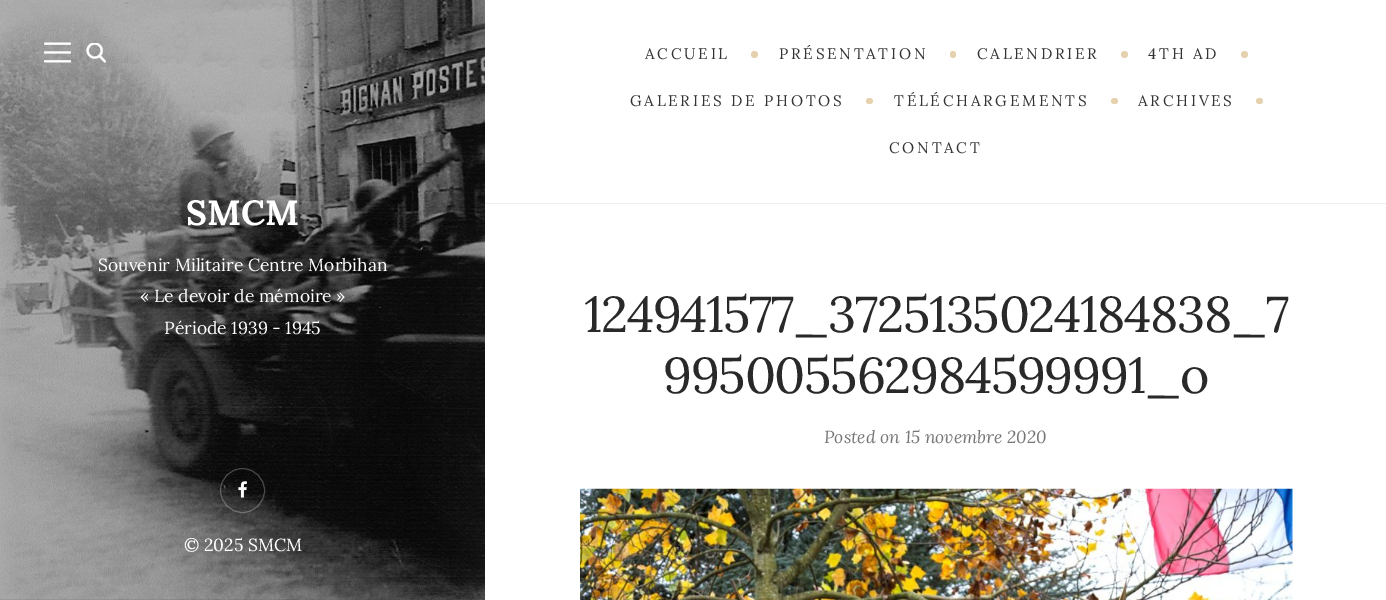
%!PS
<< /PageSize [1386 600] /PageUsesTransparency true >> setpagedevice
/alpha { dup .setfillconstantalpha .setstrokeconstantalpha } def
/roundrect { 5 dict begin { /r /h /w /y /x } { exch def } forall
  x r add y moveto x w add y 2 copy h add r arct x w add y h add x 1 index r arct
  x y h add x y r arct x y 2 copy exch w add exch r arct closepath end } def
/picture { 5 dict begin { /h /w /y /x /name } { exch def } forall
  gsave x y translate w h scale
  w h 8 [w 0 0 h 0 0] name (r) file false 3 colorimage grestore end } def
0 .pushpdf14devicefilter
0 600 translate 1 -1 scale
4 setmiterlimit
1 setgray
0 0 1386 600 rectfill
(img1.rgb) 0 0 485 600 picture
(img2.rgb) 44 42 27 21 picture
(img3.rgb) 86 43 20 20 picture
/Lora-Bold [35 0 0 -35 0 0] selectfont
186 225 moveto (SMCM) show
/Lora-Regular [17.5 0 0 -17.5 0 0] selectfont
98 271 moveto (Souvenir Militaire Centre Morbihan) show
140 302 moveto (« Le devoir de mémoire ») show
164 334 moveto (Période 1939 - 1945) show
0.25 alpha
newpath 242.5 490.5 22 0 360 arc closepath stroke
1 alpha
(img4.rgb) 238 481 9 17 picture
184 551 moveto (© 2025 SMCM) show
0.933 setgray
485 203 901 1 rectfill
/Lora-Regular [15.25 0 0 -15.25 0 0] selectfont
0.2 setgray
645 59 moveto 2.75 0 (ACCUEIL) ashow
0.898 0.82 0.678 setrgbcolor
newpath 754.5 54.5 3.5 0 360 arc closepath fill
0.2 setgray
779 59 moveto 2.75 0 (PRÉSENTATION) ashow
0.898 0.82 0.678 setrgbcolor
950 51 6 7 3 roundrect fill
0.2 setgray
977 59 moveto 2.75 0 (CALENDRIER) ashow
0.898 0.82 0.678 setrgbcolor
newpath 1124.5 54.5 3.5 0 360 arc closepath fill
0.2 setgray
1148 59 moveto 2.75 0 (4TH AD) ashow
0.898 0.82 0.678 setrgbcolor
newpath 1244.5 54.5 3.5 0 360 arc closepath fill
0.2 setgray
630 106 moveto 2.75 0 (GALERIES DE PHOTOS) ashow
0.898 0.82 0.678 setrgbcolor
866 98 7 6 3 roundrect fill
0.2 setgray
894 106 moveto 2.75 0 (TÉLÉCHARGEMENTS) ashow
0.898 0.82 0.678 setrgbcolor
1111 98 7 6 3 roundrect fill
0.2 setgray
1138 106 moveto 2.75 0 (ARCHIVES) ashow
0.898 0.82 0.678 setrgbcolor
1256 98 7 6 3 roundrect fill
0.2 setgray
889 153 moveto 2.75 0 (CONTACT) ashow
/Lora-Regular [50.25 0 0 -50.25 0 0] selectfont
0.161 setgray
584 332 moveto -1.3 0 (124941577_3725135024184838_7) ashow
663 393 moveto -1.3 0 (995005562984599991_o) ashow
/Lora-Italic [17.5 0 0 -17.5 0 0] selectfont
0.463 setgray
824 443 moveto (Posted on 15 novembre 2020) show
(img5.rgb) 580 488 713 112 picture
.poppdf14devicefilter showpage
